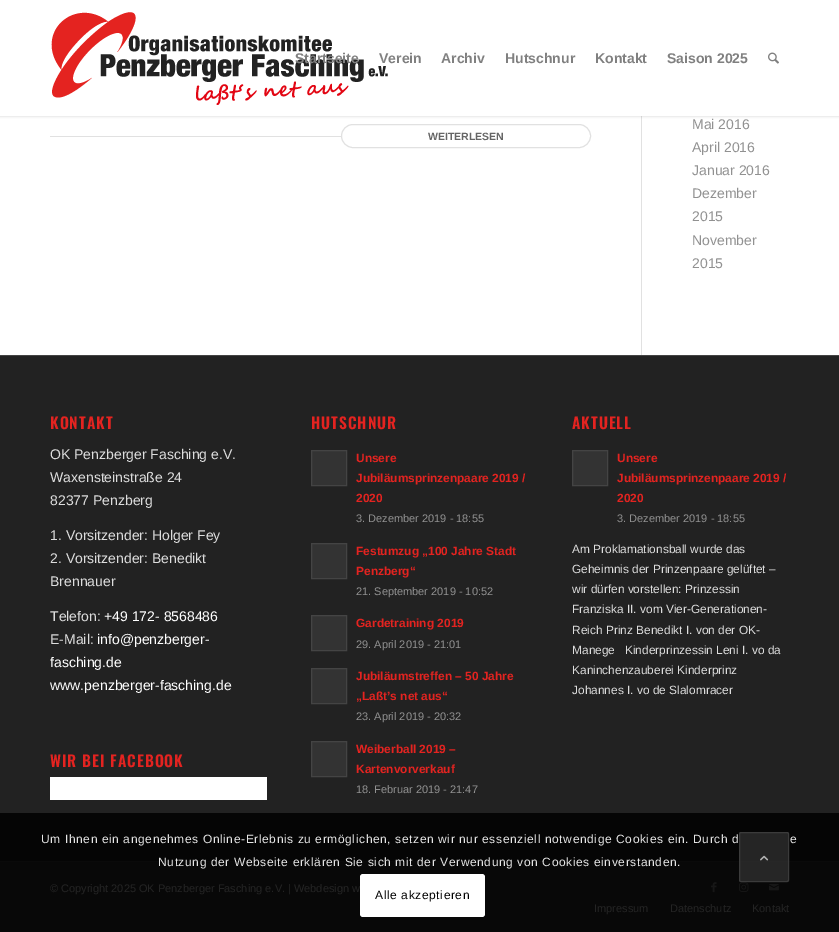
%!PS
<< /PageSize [839 932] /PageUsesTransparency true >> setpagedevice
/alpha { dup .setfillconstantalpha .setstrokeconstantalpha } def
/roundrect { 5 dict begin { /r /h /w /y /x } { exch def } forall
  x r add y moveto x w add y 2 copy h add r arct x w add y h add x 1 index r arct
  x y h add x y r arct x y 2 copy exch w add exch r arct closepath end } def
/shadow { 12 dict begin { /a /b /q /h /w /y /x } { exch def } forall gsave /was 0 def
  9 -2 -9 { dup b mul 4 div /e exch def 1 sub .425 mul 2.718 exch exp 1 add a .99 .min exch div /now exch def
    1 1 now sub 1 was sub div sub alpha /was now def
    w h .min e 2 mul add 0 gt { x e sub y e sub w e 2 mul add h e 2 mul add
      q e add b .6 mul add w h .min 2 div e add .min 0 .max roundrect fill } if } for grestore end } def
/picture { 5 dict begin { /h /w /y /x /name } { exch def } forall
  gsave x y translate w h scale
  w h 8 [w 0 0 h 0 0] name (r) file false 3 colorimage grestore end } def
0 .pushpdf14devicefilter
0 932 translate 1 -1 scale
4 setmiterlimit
1 setgray
0 0 839 932 rectfill
0.882 setgray
641 116 1 239 rectfill
0 setgray
-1 -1 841 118 0 1 0.1 shadow
1 setgray
0 0 839 116 rectfill
(img1.rgb) 51 12 337 93 picture
/LiberationSans-Bold [14 0 0 -14 0 0] selectfont
0.502 setgray
295 63 moveto (Startseite) show
379 63 moveto (Verein) show
441 63 moveto (Archiv) show
505 63 moveto (Hutschnur) show
595 63 moveto (Kontakt) show
667 63 moveto (Saison 2025) show
(img2.rgb) 768 52 11 12 picture
0.882 setgray
50 136 541 1 rectfill
1 setgray
341.5 124.5 249 23 11.5 roundrect gsave fill grestore
0.882 setgray
stroke
/LiberationSans-Bold [10.5 0 0 -10.5 0 0] selectfont
0.4 setgray
428 140 moveto (WEITERLESEN) show
/LiberationSans-Regular [14 0 0 -14 0 0] selectfont
0.569 setgray
692 129 moveto (Mai 2016) show
692 152 moveto (April 2016) show
692 175 moveto (Januar 2016) show
692 198 moveto (Dezember) show
692 221 moveto (2015) show
692 245 moveto (November) show
692 268 moveto (2015) show
0.133 setgray
0 356 839 457 rectfill
0.02 setgray
0 813 839 48 rectfill
0.267 setgray
0 355 839 1 rectfill
/Oswald-SemiBold [15.5 0 0 -15.5 0 0] selectfont
0.894 0.137 0.125 setrgbcolor
50 429 moveto 1 0 (KONTAKT) ashow
/LiberationSans-Regular [14 0 0 -14 0 0] selectfont
0.867 setgray
50 459 moveto (OK Penzberger Fasching e.V.) show
50 482 moveto (Waxensteinstraße 24) show
50 505 moveto (82377 Penzberg) show
50 540 moveto (1. Vorsitzender: Holger Fey) show
50 563 moveto (2. Vorsitzender: Benedikt) show
50 586 moveto (Brennauer) show
50 621 moveto (Telefon:) show
1 setgray
104 621 moveto (+49 172- 8568486) show
0.867 setgray
50 644 moveto (E-Mail:) show
1 setgray
97 644 moveto (info@penzberger-) show
50 667 moveto (fasching.de) show
50 690 moveto (www.penzberger-fasching.de) show
/Oswald-SemiBold [15.5 0 0 -15.5 0 0] selectfont
0.894 0.137 0.125 setrgbcolor
50 767 moveto 1 0 (WIR BEI FACEBOOK) ashow
1 setgray
50 777 217 23 rectfill
0.894 0.137 0.125 setrgbcolor
311 429 moveto 1 0 (HUTSCHNUR) ashow
0.2 setgray
newpath 311.5 450.5 moveto 346.5 450.5 lineto 346.5 485.5 lineto 311.5 485.5 lineto closepath gsave fill grestore
0.267 setgray
stroke
/LiberationSans-Bold [11.9 0 0 -11.9 0 0] selectfont
0.894 0.137 0.125 setrgbcolor
356 462 moveto (Unsere) show
356 482 moveto (Jubiläumsprinzenpaare 2019 /) show
356 502 moveto (2020) show
/LiberationSans-Regular [11 0 0 -11 0 0] selectfont
0.569 setgray
356 522 moveto (3. Dezember 2019 - 18:55) show
0.2 setgray
newpath 311.5 543.5 moveto 346.5 543.5 lineto 346.5 578.5 lineto 311.5 578.5 lineto closepath gsave fill grestore
0.267 setgray
stroke
/LiberationSans-Bold [11.9 0 0 -11.9 0 0] selectfont
0.894 0.137 0.125 setrgbcolor
356 555 moveto (Festumzug „100 Jahre Stadt) show
356 575 moveto (Penzberg“) show
/LiberationSans-Regular [11 0 0 -11 0 0] selectfont
0.569 setgray
356 595 moveto (21. September 2019 - 10:52) show
0.2 setgray
newpath 311.5 615.5 moveto 346.5 615.5 lineto 346.5 650.5 lineto 311.5 650.5 lineto closepath gsave fill grestore
0.267 setgray
stroke
/LiberationSans-Bold [11.9 0 0 -11.9 0 0] selectfont
0.894 0.137 0.125 setrgbcolor
356 627 moveto (Gardetraining 2019) show
/LiberationSans-Regular [11 0 0 -11 0 0] selectfont
0.569 setgray
356 648 moveto (29. April 2019 - 21:01) show
0.2 setgray
newpath 311.5 668.5 moveto 346.5 668.5 lineto 346.5 703.5 lineto 311.5 703.5 lineto closepath gsave fill grestore
0.267 setgray
stroke
/LiberationSans-Bold [11.9 0 0 -11.9 0 0] selectfont
0.894 0.137 0.125 setrgbcolor
356 680 moveto (Jubiläumstreffen – 50 Jahre) show
356 700 moveto („Laßt’s net aus“) show
/LiberationSans-Regular [11 0 0 -11 0 0] selectfont
0.569 setgray
356 720 moveto (23. April 2019 - 20:32) show
0.2 setgray
newpath 311.5 741.5 moveto 346.5 741.5 lineto 346.5 776.5 lineto 311.5 776.5 lineto closepath gsave fill grestore
0.267 setgray
stroke
/LiberationSans-Bold [11.9 0 0 -11.9 0 0] selectfont
0.894 0.137 0.125 setrgbcolor
356 753 moveto (Weiberball 2019 –) show
356 773 moveto (Kartenvorverkauf) show
/LiberationSans-Regular [11 0 0 -11 0 0] selectfont
0.569 setgray
356 793 moveto (18. Februar 2019 - 21:47) show
/Oswald-SemiBold [15.5 0 0 -15.5 0 0] selectfont
0.894 0.137 0.125 setrgbcolor
572 429 moveto 1 0 (AKTUELL) ashow
0.2 setgray
newpath 572.5 450.5 moveto 607.5 450.5 lineto 607.5 485.5 lineto 572.5 485.5 lineto closepath gsave fill grestore
0.267 setgray
stroke
/LiberationSans-Bold [11.9 0 0 -11.9 0 0] selectfont
0.894 0.137 0.125 setrgbcolor
617 462 moveto (Unsere) show
617 482 moveto (Jubiläumsprinzenpaare 2019 /) show
617 502 moveto (2020) show
/LiberationSans-Regular [11 0 0 -11 0 0] selectfont
0.569 setgray
617 522 moveto (3. Dezember 2019 - 18:55) show
/LiberationSans-Regular [11.9 0 0 -11.9 0 0] selectfont
0.867 setgray
572 553 moveto (Am Proklamationsball wurde das) show
572 573 moveto (Geheimnis der Prinzenpaare gelüftet –) show
572 593 moveto (wir dürfen vorstellen: Prinzessin) show
572 613 moveto (Franziska II. vom Vier-Generationen-) show
572 634 moveto (Reich Prinz Benedikt I. von der OK-) show
572 654 moveto (Manege   Kinderprinzessin Leni I. vo da) show
572 674 moveto (Kaninchenzauberei Kinderprinz) show
572 694 moveto (Johannes I. vo de Slalomracer) show
0.031 setgray
0 862 839 70 rectfill
0.039 setgray
0 861 839 1 rectfill
/LiberationSans-Regular [11 0 0 -11 0 0] selectfont
0.141 setgray
50 892 moveto (© Copyright 2025 OK Penzberger Fasching e.V. | Webdesign w) show
(img3.rgb) 711 882 6 11 picture
(img4.rgb) 739 882 10 10 picture
(img5.rgb) 769 883 10 8 picture
594 912 moveto (Impressum) show
670 912 moveto (Datenschutz) show
752 912 moveto (Kontakt) show
0.7 alpha
0.2 setgray
739 832 50 50 2 roundrect fill
0.267 setgray
739.5 832.5 49 49 1.5 roundrect stroke
1 alpha
(img6.rgb) 760 855 9 6 picture
/LiberationSans-Regular [12 0 0 -12 0 0] selectfont
0.902 setgray
41 843 moveto 0.6 0 (Um Ihnen ein angenehmes Online-Erlebnis zu ermöglichen, setzen wir nur essenziell notwendige Cookies ein. Durch d) ashow
790 843 moveto 0.6 0 (e) ashow
158 866 moveto 0.6 0 (Nutzung der Webseite erklären Sie sich mit der Verwendung von Cookies einverstanden.) ashow
1 setgray
360 874 125 43 3 roundrect fill
0 setgray
375 899 moveto 0.6 0 (Alle akzeptieren) ashow
.poppdf14devicefilter showpage
